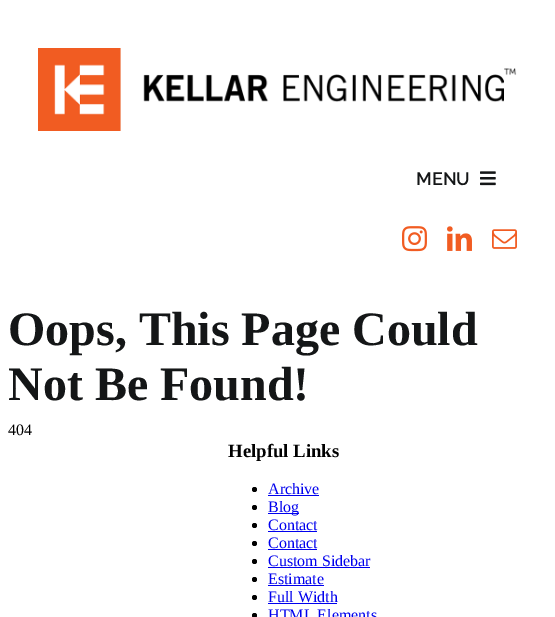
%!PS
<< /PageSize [555 617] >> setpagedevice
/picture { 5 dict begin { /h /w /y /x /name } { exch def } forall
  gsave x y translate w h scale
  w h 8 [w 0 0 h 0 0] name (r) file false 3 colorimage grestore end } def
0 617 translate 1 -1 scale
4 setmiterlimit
1 setgray
0 0 555 617 rectfill
(img1.rgb) 38 48 479 83 picture
/Raleway-Thin [18 0 0 -18 0 0] selectfont
0.078 0.086 0.09 setrgbcolor
416 185 moveto (MENU) show
(img2.rgb) 480 171 16 15 picture
(img3.rgb) 402 226 25 26 picture
(img4.rgb) 447 226 25 25 picture
(img5.rgb) 492 229 25 20 picture
/LiberationSerif-Bold [48 0 0 -48 0 0] selectfont
8 345 moveto (Oops, This Page Could) show
8 400 moveto (Not Be Found!) show
/LiberationSerif-Regular [16 0 0 -16 0 0] selectfont
0 setgray
8 435 moveto (404) show
/LiberationSerif-Bold [18.75 0 0 -18.75 0 0] selectfont
228 457 moveto (Helpful Links) show
newpath 254.5 489.5 2.5 0 360 arc closepath fill
/LiberationSerif-Regular [16 0 0 -16 0 0] selectfont
0 0 0.933 setrgbcolor
268 494 moveto (Archive) show
268 495 51 1 rectfill
0 setgray
newpath 254.5 507.5 2.5 0 360 arc closepath fill
0 0 0.933 setrgbcolor
268 513 31 1 rectfill
268 512 moveto (Blog) show
0 setgray
newpath 254.5 525.5 2.5 0 360 arc closepath fill
0 0 0.933 setrgbcolor
268 530 moveto (Contact) show
268 531 49 1 rectfill
0 setgray
newpath 254.5 543.5 2.5 0 360 arc closepath fill
0 0 0.933 setrgbcolor
268 548 moveto (Contact) show
268 549 49 1 rectfill
0 setgray
newpath 254.5 561.5 2.5 0 360 arc closepath fill
0 0 0.933 setrgbcolor
268 566 moveto (Custom Sidebar) show
268 567 102 1 rectfill
0 setgray
newpath 254.5 579.5 2.5 0 360 arc closepath fill
0 0 0.933 setrgbcolor
268 584 moveto (Estimate) show
268 585 56 1 rectfill
0 setgray
newpath 254.5 597.5 2.5 0 360 arc closepath fill
0 0 0.933 setrgbcolor
268 602 moveto (Full Width) show
268 603 69 1 rectfill
0 setgray
newpath 254.5 615.5 2.5 0 360 arc closepath fill
0 0 0.933 setrgbcolor
268 620 moveto (HTML Elements) show
showpage
